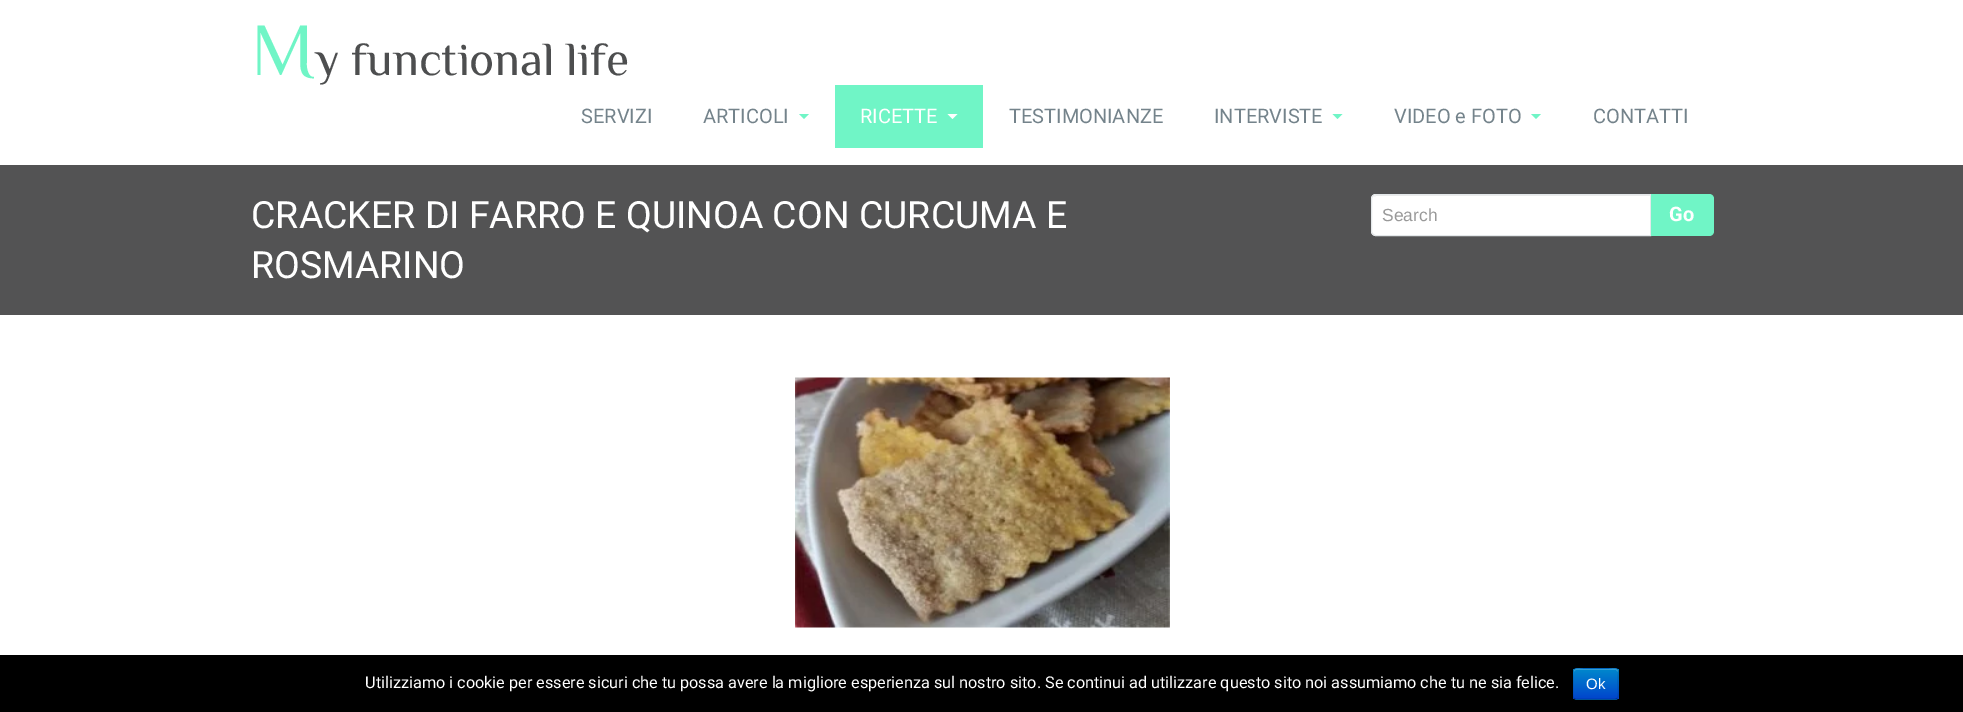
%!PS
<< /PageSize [1963 712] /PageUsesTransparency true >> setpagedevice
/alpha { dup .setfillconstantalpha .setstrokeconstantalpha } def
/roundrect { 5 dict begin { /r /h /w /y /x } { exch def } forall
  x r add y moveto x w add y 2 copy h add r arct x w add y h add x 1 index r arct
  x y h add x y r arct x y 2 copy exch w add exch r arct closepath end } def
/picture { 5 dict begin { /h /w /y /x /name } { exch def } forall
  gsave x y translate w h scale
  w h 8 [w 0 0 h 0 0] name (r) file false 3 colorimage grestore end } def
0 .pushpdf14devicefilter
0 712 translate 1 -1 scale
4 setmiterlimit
1 setgray
0 0 1963 712 rectfill
/Philosopher-Regular [75 0 0 -75 0 0] selectfont
0.439 0.961 0.776 setrgbcolor
251 75 moveto (M) show
/Philosopher-Regular [47.5 0 0 -47.5 0 0] selectfont
0.302 0.306 0.31 setrgbcolor
315 75 moveto (y functional life) show
/Roboto-Regular [20 0 0 -20 0 0] selectfont
0.455 0.514 0.545 setrgbcolor
581 123 moveto (SERVIZI) show
703 123 moveto (ARTICOLI) show
0.439 0.961 0.776 setrgbcolor
newpath 799 114 moveto 809 114 lineto 804 119 lineto closepath fill
835 85 148 63 rectfill
1 setgray
860 123 moveto (RICETTE) show
newpath 947.5 114 moveto 957.5 114 lineto 952.5 119 lineto closepath fill
0.455 0.514 0.545 setrgbcolor
1009 123 moveto (TESTIMONIANZE) show
1214 123 moveto (INTERVISTE) show
0.439 0.961 0.776 setrgbcolor
newpath 1332.5 114 moveto 1342.5 114 lineto 1337.5 119 lineto closepath fill
0.455 0.514 0.545 setrgbcolor
1394 123 moveto (VIDEO e FOTO) show
0.439 0.961 0.776 setrgbcolor
newpath 1531 114 moveto 1541 114 lineto 1536 119 lineto closepath fill
0.455 0.514 0.545 setrgbcolor
1593 123 moveto (CONTATTI) show
0.325 0.325 0.329 setrgbcolor
0 165 1963 150 rectfill
/Roboto-Regular [37.5 0 0 -37.5 0 0] selectfont
1 setgray
251 228 moveto (CRACKER DI FARRO E QUINOA CON CURCUMA E) show
251 278 moveto (ROSMARINO) show
newpath 1376 194 moveto 1651 194 lineto 1651 236 lineto 1376 236 lineto 1373 236 1371 234 1371 231 curveto 1371 199 lineto 1371 196 1373 194 1376 194 curveto closepath fill
0.925 setgray
newpath 1376 196 moveto 1650 196 lineto 1650 195 lineto 1376 195 lineto 1374 197 lineto closepath fill
0.894 0.91 0.918 setrgbcolor
newpath 1376 194.5 moveto 1650.5 194.5 lineto 1650.5 235.5 lineto 1376 235.5 lineto 1373.5 235.5 1371.5 233.5 1371.5 231 curveto 1371.5 199 lineto 1371.5 196.5 1373.5 194.5 1376 194.5 curveto closepath stroke
/LiberationSans-Regular [17.5 0 0 -17.5 0 0] selectfont
0.6 setgray
1382 221 moveto (Search) show
0.439 0.961 0.776 setrgbcolor
newpath 1651 194 moveto 1709 194 lineto 1712 194 1714 196 1714 199 curveto 1714 231 lineto 1714 234 1712 236 1709 236 curveto 1651 236 lineto closepath fill
/Roboto-Bold [20 0 0 -20 0 0] selectfont
1 setgray
1669 221 moveto (Go) show
(img1.rgb) 795 377 375 251 picture
0 setgray
0 655 1963 57 rectfill
/Roboto-Regular [16.25 0 0 -16.25 0 0] selectfont
1 setgray
365 688 moveto (Utilizziamo i cookie per essere sicuri che tu possa avere la migliore esperienza sul nostro sito. Se continui ad utilizzare questo sito noi assumiamo che tu ne sia felice.) show
0 0.427 0.8 setrgbcolor
1573 668 46 32 4 roundrect fill
gsave
1573 668 46 32 4 roundrect clip newpath
gsave newpath 1573 669 moveto 1619 669 lineto 1619 699 lineto 1573 699 lineto closepath clip newpath
<< /ShadingType 2 /ColorSpace /DeviceRGB /Coords [1596 669 1596 699] /Extend [true true] /Function << /FunctionType 2 /Domain [0 1] /C0 [0 0.533 0.8] /C1 [0 0.267 0.8] /N 1 >> >> shfill grestore
grestore
0.2 0.624 0.839 setrgbcolor
newpath 1576 670 moveto 1616 670 lineto 1618 672 lineto 1618 667 1612 669 1609 669 curveto 1583 669 lineto 1580 669 1574 667 1574 672 curveto 1574 671 1575 670 1576 670 curveto closepath fill
0.25 alpha
0 setgray
1.2 setlinewidth
newpath 1617 698.5 moveto 1615 699.5 lineto 1576 699.5 lineto 1574 698.5 lineto stroke
0.1 alpha
newpath 1574 698.5 moveto 1572 696.5 1573 686.5 1573 684 curveto 1573 669 1569.5 668 1582.5 668 curveto 1608.5 668 lineto 1621.5 668 1618 669 1618 684 curveto 1618 686.5 1619.5 696.5 1617 698.5 curveto stroke
/LiberationSans-Regular [15 0 0 -15 0 0] selectfont
1 alpha
1 setgray
1586 689 moveto (Ok) show
.poppdf14devicefilter showpage
